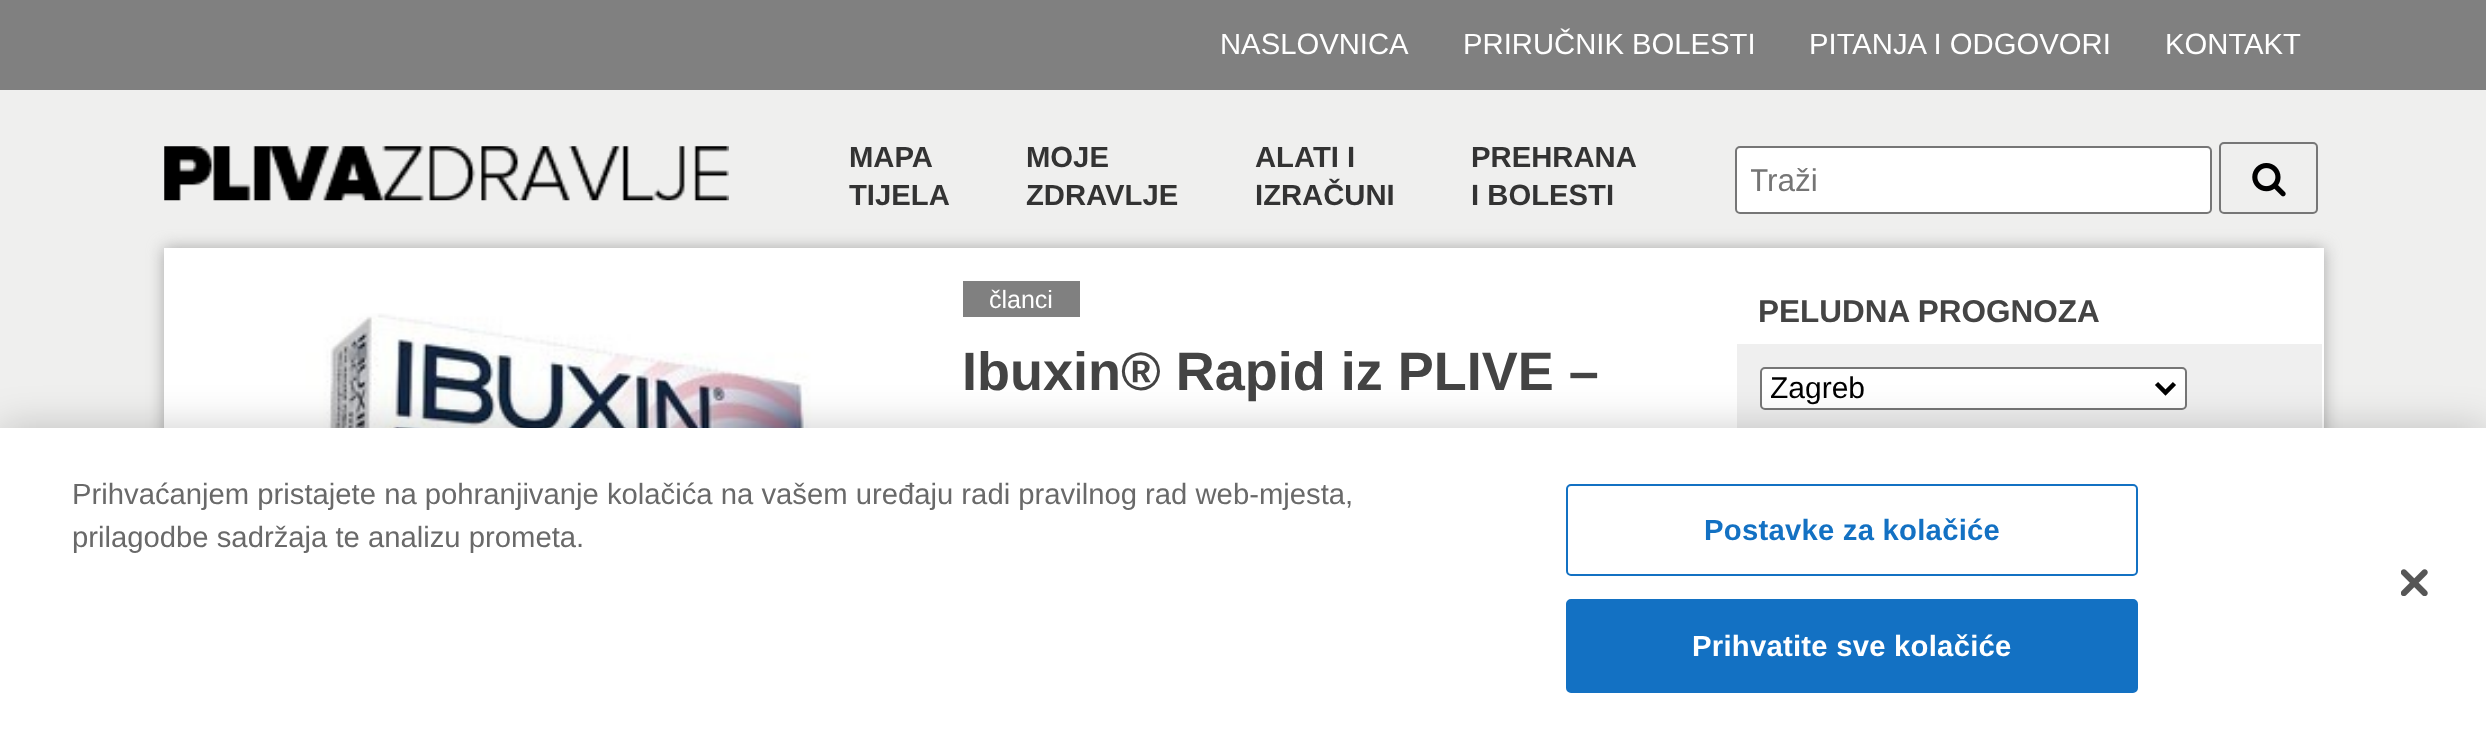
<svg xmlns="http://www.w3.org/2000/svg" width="2486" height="738">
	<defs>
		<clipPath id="clip1"><rect x="1751" y="162" width="445" height="36" /></clipPath>
		<clipPath id="clip2"><rect x="1771" y="369" width="378" height="38" /></clipPath>
	</defs>
	<rect width="100%" height="100%" fill="#EFEFEE" />
	<rect x="0" y="0" width="2486" height="90" fill="#808080" />
	<g font-family="Liberation Sans" font-size="29.25" fill="#FFFFFF">
		<text x="1220" y="54">NASLOVNICA</text>
		<text x="1463" y="54">PRIRUČNIK BOLESTI</text>
		<text x="1809" y="54">PITANJA I ODGOVORI</text>
		<text x="2165" y="54">KONTAKT</text>
	</g>
	<image x="164" y="146" width="565" height="55" href="assets/img1.png" />
	<g font-family="Liberation Sans" font-size="29.25" font-weight="700" fill="#333333">
		<text x="849" y="167">MAPA</text>
		<text x="849" y="205">TIJELA</text>
		<text x="1026" y="167">MOJE</text>
		<text x="1026" y="205">ZDRAVLJE</text>
		<text x="1255" y="167">ALATI I</text>
		<text x="1255" y="205">IZRAČUNI</text>
		<text x="1471" y="167">PREHRANA</text>
		<text x="1471" y="205">I BOLESTI</text>
	</g>
	<rect x="1736" y="147" width="475" height="66" rx="4" fill="#FFFFFF" stroke="#767676" stroke-width="2" />
	<g clip-path="url(#clip1)">
		<text x="1749" y="191" font-family="Liberation Sans" font-size="31.5" fill="#757575">Traži</text>
	</g>
	<rect x="2220" y="143" width="97" height="70" rx="4" fill="none" stroke="#767676" stroke-width="2" />
	<image x="2252" y="163" width="34" height="34" href="assets/img2.png" />
	<rect x="164" y="248" width="2160" height="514" fill="#A6A6A6" filter="blur(8px)" />
	<rect x="164" y="248" width="2160" height="180" fill="#FFFFFF" />
	<image x="200" y="313" width="692" height="115" href="assets/img3.png" />
	<rect x="963" y="281" width="117" height="36" fill="#808080" />
	<text x="989" y="308" font-family="Liberation Sans" font-size="25" fill="#FFFFFF">članci</text>
	<text x="962" y="390" font-family="Liberation Sans" font-size="54" font-weight="700" fill="#444444">Ibuxin® Rapid iz PLIVE –</text>
	<rect x="1737" y="344" width="585" height="84" fill="#EFEFEF" />
	<text x="1758" y="322" font-family="Liberation Sans" font-size="31.5" font-weight="700" fill="#444444">PELUDNA PROGNOZA</text>
	<rect x="1761" y="368" width="425" height="41" rx="4" fill="#FFFFFF" stroke="#767676" stroke-width="2" />
	<path d="M2156.5 383.5L2165.5 392.5L2174.5 383.5" fill="none" stroke="#000000" stroke-width="4.5" />
	<g clip-path="url(#clip2)">
		<text x="1770" y="398" font-family="Liberation Sans" font-size="30" fill="#000000">Zagreb</text>
	</g>
	<rect x="0" y="428" width="2486" height="310" fill="#000000" fill-opacity="0.2" filter="blur(20px)" />
	<rect x="0" y="428" width="2486" height="310" fill="#FFFFFF" />
	<g font-family="Liberation Sans" font-size="29.25" fill="#696969">
		<text x="72" y="504">Prihvaćanjem pristajete na pohranjivanje kolačića na vašem uređaju radi pravilnog rad web-mjesta,</text>
		<text x="72" y="547">prilagodbe sadržaja te analizu prometa.</text>
	</g>
	<rect x="1567" y="485" width="570" height="90" rx="4" fill="none" stroke="#1371C3" stroke-width="2" />
	<text x="1704" y="540" font-family="Liberation Sans" font-size="29.25" font-weight="700" letter-spacing="0.25" fill="#1371C3">Postavke za kolačiće</text>
	<rect x="1567" y="600" width="570" height="92" rx="4" fill="#1371C3" stroke="#1371C3" stroke-width="2" />
	<text x="1692" y="656" font-family="Liberation Sans" font-size="29.25" font-weight="700" letter-spacing="0.25" fill="#FFFFFF">Prihvatite sve kolačiće</text>
	<image x="2401" y="569" width="27" height="27" href="assets/img4.png" />
</svg>
